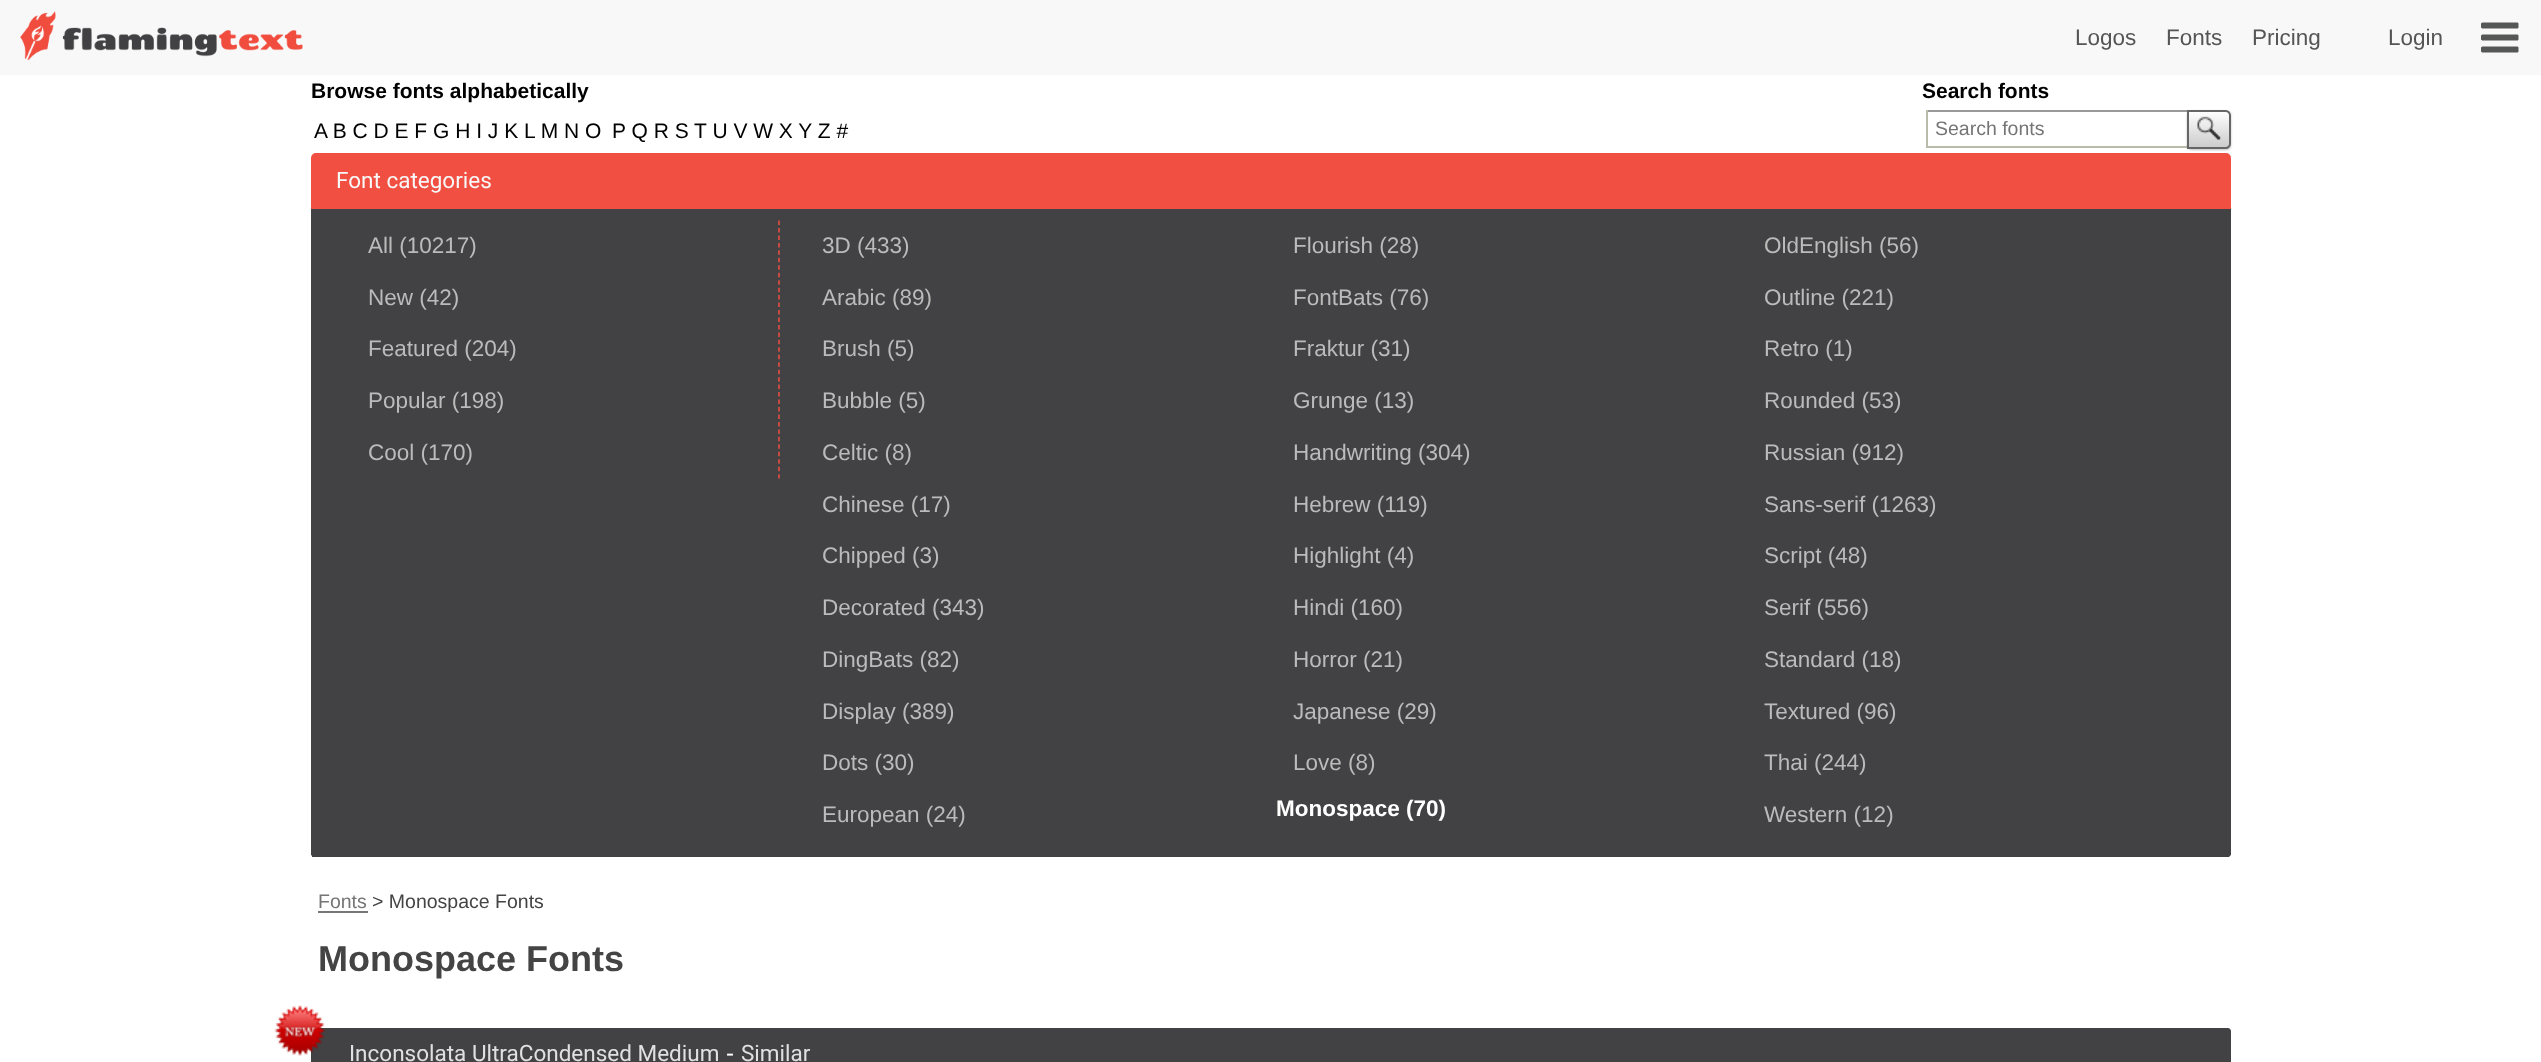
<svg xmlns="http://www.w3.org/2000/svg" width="2541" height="1062">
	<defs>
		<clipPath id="clip1"><path d="M2187 110H2226C2229 110 2231 112 2231 115V144C2231 147 2229 149 2226 149H2187Z" /></clipPath>
		<linearGradient id="g1" gradientUnits="userSpaceOnUse" x1="2209" y1="111" x2="2209" y2="147"><stop offset="0" stop-color="#FFFFFF" /><stop offset="1" stop-color="#CCCCCC" /></linearGradient>
	</defs>
	<rect width="100%" height="100%" fill="#FFFFFF" />
	<rect x="0" y="0" width="2541" height="75" fill="#F8F8F8" />
	<image x="20" y="11" width="283" height="49" href="assets/img1.png" />
	<g font-family="Liberation Sans" font-size="22.5" fill="#555555">
		<text x="2075" y="45">Logos</text>
		<text x="2166" y="45">Fonts</text>
		<text x="2252" y="45">Pricing</text>
		<text x="2388" y="45">Login</text>
	</g>
	<image x="2481" y="22" width="38" height="31" href="assets/img2.png" />
	<text x="311" y="98" font-family="Liberation Sans" font-size="21" font-weight="700" fill="#000000">Browse fonts alphabetically</text>
	<text x="314" y="138" font-family="Liberation Sans" font-size="21" fill="#000000">A B C D E F G H I J K L M N O</text>
	<text x="612" y="138" font-family="Liberation Sans" font-size="21" fill="#000000">P Q R S T U V W X Y Z #</text>
	<text x="1922" y="98" font-family="Liberation Sans" font-size="21" font-weight="700" fill="#000000">Search fonts</text>
	<rect x="1926" y="110" width="261" height="2" fill="#999999" />
	<rect x="1926" y="146" width="261" height="2" fill="#BBBBAA" />
	<rect x="1926" y="110" width="2" height="37" fill="#BBBBAA" />
	<text x="1935" y="135" font-family="Liberation Sans" font-size="19.5" fill="#757575">Search fonts</text>
	<path d="M316 154.5H2226C2228 154.5 2229.5 156 2229.5 158V207.5H312.5V158C312.5 156 314 154.5 316 154.5Z" fill="#F04F41" stroke="#F04F41" stroke-width="3" />
	<rect x="2187" y="111" width="44" height="39" rx="5" fill="#000000" fill-opacity="0.25" filter="blur(1px)" />
	<g clip-path="url(#clip1)">
		<rect x="2189" y="111" width="42" height="36" fill="url(#g1)" />
	</g>
	<path d="M2188 111H2226C2228 111 2230 113 2230 115V144C2230 146 2228 148 2226 148H2188Z" fill="none" stroke="#666666" stroke-width="2" />
	<image x="2197" y="116" width="24" height="24" href="assets/img3.png" />
	<text x="336" y="188" font-family="Roboto" font-size="22.5" fill="#F8F8F8">Font categories</text>
	<path d="M311 209H2231V854C2231 855.5 2229.5 857 2228 857H314C312.5 857 311 855.5 311 854Z" fill="#424143" />
	<rect x="2230" y="854" width="1" height="1" fill="#424143" />
	<rect x="312" y="856" width="1917" height="1" fill="#424143" />
	<rect x="311" y="854" width="1" height="1" fill="#424143" />
	<path d="M779 220.5V478.5" fill="none" stroke="#F04F41" stroke-width="1.5" stroke-dasharray="4.5 2.96" />
	<g font-family="Liberation Sans" font-size="22.5" fill="#BBBBBB">
		<text x="368" y="253">All (10217)</text>
		<text x="368" y="305">New (42)</text>
		<text x="368" y="356">Featured (204)</text>
		<text x="368" y="408">Popular (198)</text>
		<text x="368" y="460">Cool (170)</text>
		<text x="822" y="253">3D (433)</text>
		<text x="822" y="305">Arabic (89)</text>
		<text x="822" y="356">Brush (5)</text>
		<text x="822" y="408">Bubble (5)</text>
		<text x="822" y="460">Celtic (8)</text>
		<text x="822" y="512">Chinese (17)</text>
		<text x="822" y="563">Chipped (3)</text>
		<text x="822" y="615">Decorated (343)</text>
		<text x="822" y="667">DingBats (82)</text>
		<text x="822" y="719">Display (389)</text>
		<text x="822" y="770">Dots (30)</text>
		<text x="822" y="822">European (24)</text>
		<text x="1293" y="253">Flourish (28)</text>
		<text x="1293" y="305">FontBats (76)</text>
		<text x="1293" y="356">Fraktur (31)</text>
		<text x="1293" y="408">Grunge (13)</text>
		<text x="1293" y="460">Handwriting (304)</text>
		<text x="1293" y="512">Hebrew (119)</text>
		<text x="1293" y="563">Highlight (4)</text>
		<text x="1293" y="615">Hindi (160)</text>
		<text x="1293" y="667">Horror (21)</text>
		<text x="1293" y="719">Japanese (29)</text>
		<text x="1293" y="770">Love (8)</text>
	</g>
	<text x="1276" y="816" font-family="Liberation Sans" font-size="22.5" font-weight="700" fill="#FFFFFF">Monospace (70)</text>
	<g font-family="Liberation Sans" font-size="22.5" fill="#BBBBBB">
		<text x="1764" y="253">OldEnglish (56)</text>
		<text x="1764" y="305">Outline (221)</text>
		<text x="1764" y="356">Retro (1)</text>
		<text x="1764" y="408">Rounded (53)</text>
		<text x="1764" y="460">Russian (912)</text>
		<text x="1764" y="512">Sans-serif (1263)</text>
		<text x="1764" y="563">Script (48)</text>
		<text x="1764" y="615">Serif (556)</text>
		<text x="1764" y="667">Standard (18)</text>
		<text x="1764" y="719">Textured (96)</text>
		<text x="1764" y="770">Thai (244)</text>
		<text x="1764" y="822">Western (12)</text>
	</g>
	<text x="318" y="908" font-family="Liberation Sans" font-size="19.5" fill="#757575">Fonts</text>
	<rect x="318" y="911" width="50" height="2" fill="#777777" />
	<text x="372" y="908" font-family="Liberation Sans" font-size="19.5" fill="#444444">&gt; Monospace Fonts</text>
	<text x="318" y="971" font-family="Liberation Sans" font-size="36" font-weight="700" fill="#444444">Monospace Fonts</text>
	<path d="M314 1028H2228C2229.5 1028 2231 1029.5 2231 1031V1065H311V1031C311 1029.5 312.5 1028 314 1028Z" fill="#424143" />
	<image x="274" y="1005" width="52" height="51" href="assets/img4.png" />
	<text x="349" y="1061" font-family="Roboto" font-size="22.5" fill="#E0E0E1">Inconsolata UltraCondensed Medium</text>
	<text x="726" y="1061" font-family="Liberation Sans" font-size="24" fill="#FFFFFF">-</text>
	<text x="741" y="1061" font-family="Roboto" font-size="22.5" fill="#E0E0E1">Similar</text>
</svg>
